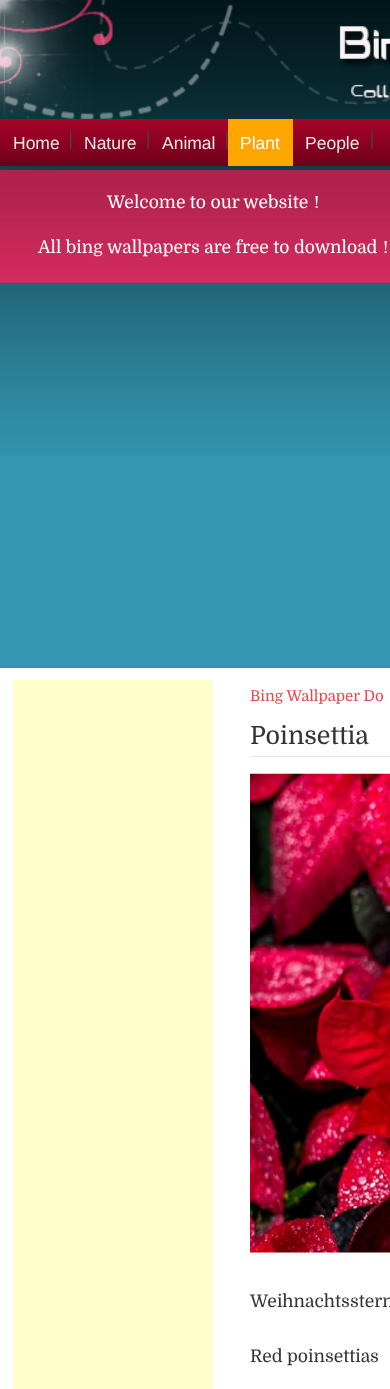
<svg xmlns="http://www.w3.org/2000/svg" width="390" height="1389">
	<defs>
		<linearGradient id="g1" gradientUnits="userSpaceOnUse" x1="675" y1="119" x2="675" y2="166"><stop offset="0" stop-color="#A90329" /><stop offset="0.44" stop-color="#8F0222" /><stop offset="1" stop-color="#6D0019" /></linearGradient>
	</defs>
	<rect width="100%" height="100%" fill="#3496B1" />
	<image x="0" y="0" width="390" height="456" href="assets/img1.png" />
	<image x="339" y="26" width="51" height="72" href="assets/img2.png" />
	<rect x="0" y="119" width="390" height="47" fill="url(#g1)" />
	<image x="70" y="131" width="2" height="18" href="assets/img3.png" />
	<text x="13" y="149" font-family="Liberation Sans" font-size="17.5" fill="#E7E7E7">Home</text>
	<image x="147" y="131" width="2" height="18" href="assets/img4.png" />
	<text x="84" y="149" font-family="Liberation Sans" font-size="17.5" fill="#E7E7E7">Nature</text>
	<image x="226" y="131" width="2" height="18" href="assets/img5.png" />
	<text x="162" y="149" font-family="Liberation Sans" font-size="17.5" fill="#E7E7E7">Animal</text>
	<rect x="228" y="119" width="65" height="47" fill="#FFA500" />
	<text x="240" y="149" font-family="Liberation Sans" font-size="17.5" fill="#FFFFFF">Plant</text>
	<image x="371" y="131" width="2" height="18" href="assets/img5.png" />
	<text x="305" y="149" font-family="Liberation Sans" font-size="17.5" fill="#E7E7E7">People</text>
	<rect x="0" y="282" width="390" height="1" fill="#C42857" />
	<image x="0" y="170" width="390" height="113" href="assets/img6.png" />
	<text x="107" y="208" font-family="Domine" font-size="17.5" fill="#FFFFFF">Welcome to our website</text>
	<text x="308" y="208" font-family="WenQuanYi Zen Hei" font-size="17.5" font-weight="500" fill="#FFFFFF">！</text>
	<text x="38" y="253" font-family="Domine" font-size="17.5" fill="#FFFFFF">All bing wallpapers are free to download</text>
	<text x="377" y="253" font-family="WenQuanYi Zen Hei" font-size="17.5" font-weight="500" fill="#FFFFFF">！</text>
	<rect x="0" y="668" width="390" height="721" fill="#FFFFFF" />
	<rect x="13" y="680" width="200" height="709" fill="#FFFFCC" />
	<text x="250" y="701" font-family="Domine" font-size="15" fill="#E54949">Bing Wallpaper Do</text>
	<text x="250" y="744" font-family="Domine" font-size="25" fill="#333333">Poinsettia</text>
	<rect x="250" y="756" width="140" height="1" fill="#E7E7E7" />
	<image x="250" y="773" width="140" height="480" href="assets/img7.png" />
	<g font-family="Domine" font-size="17.5" fill="#333333">
		<text x="250" y="1307">Weihnachtsstern</text>
		<text x="250" y="1362">Red poinsettias</text>
	</g>
</svg>
